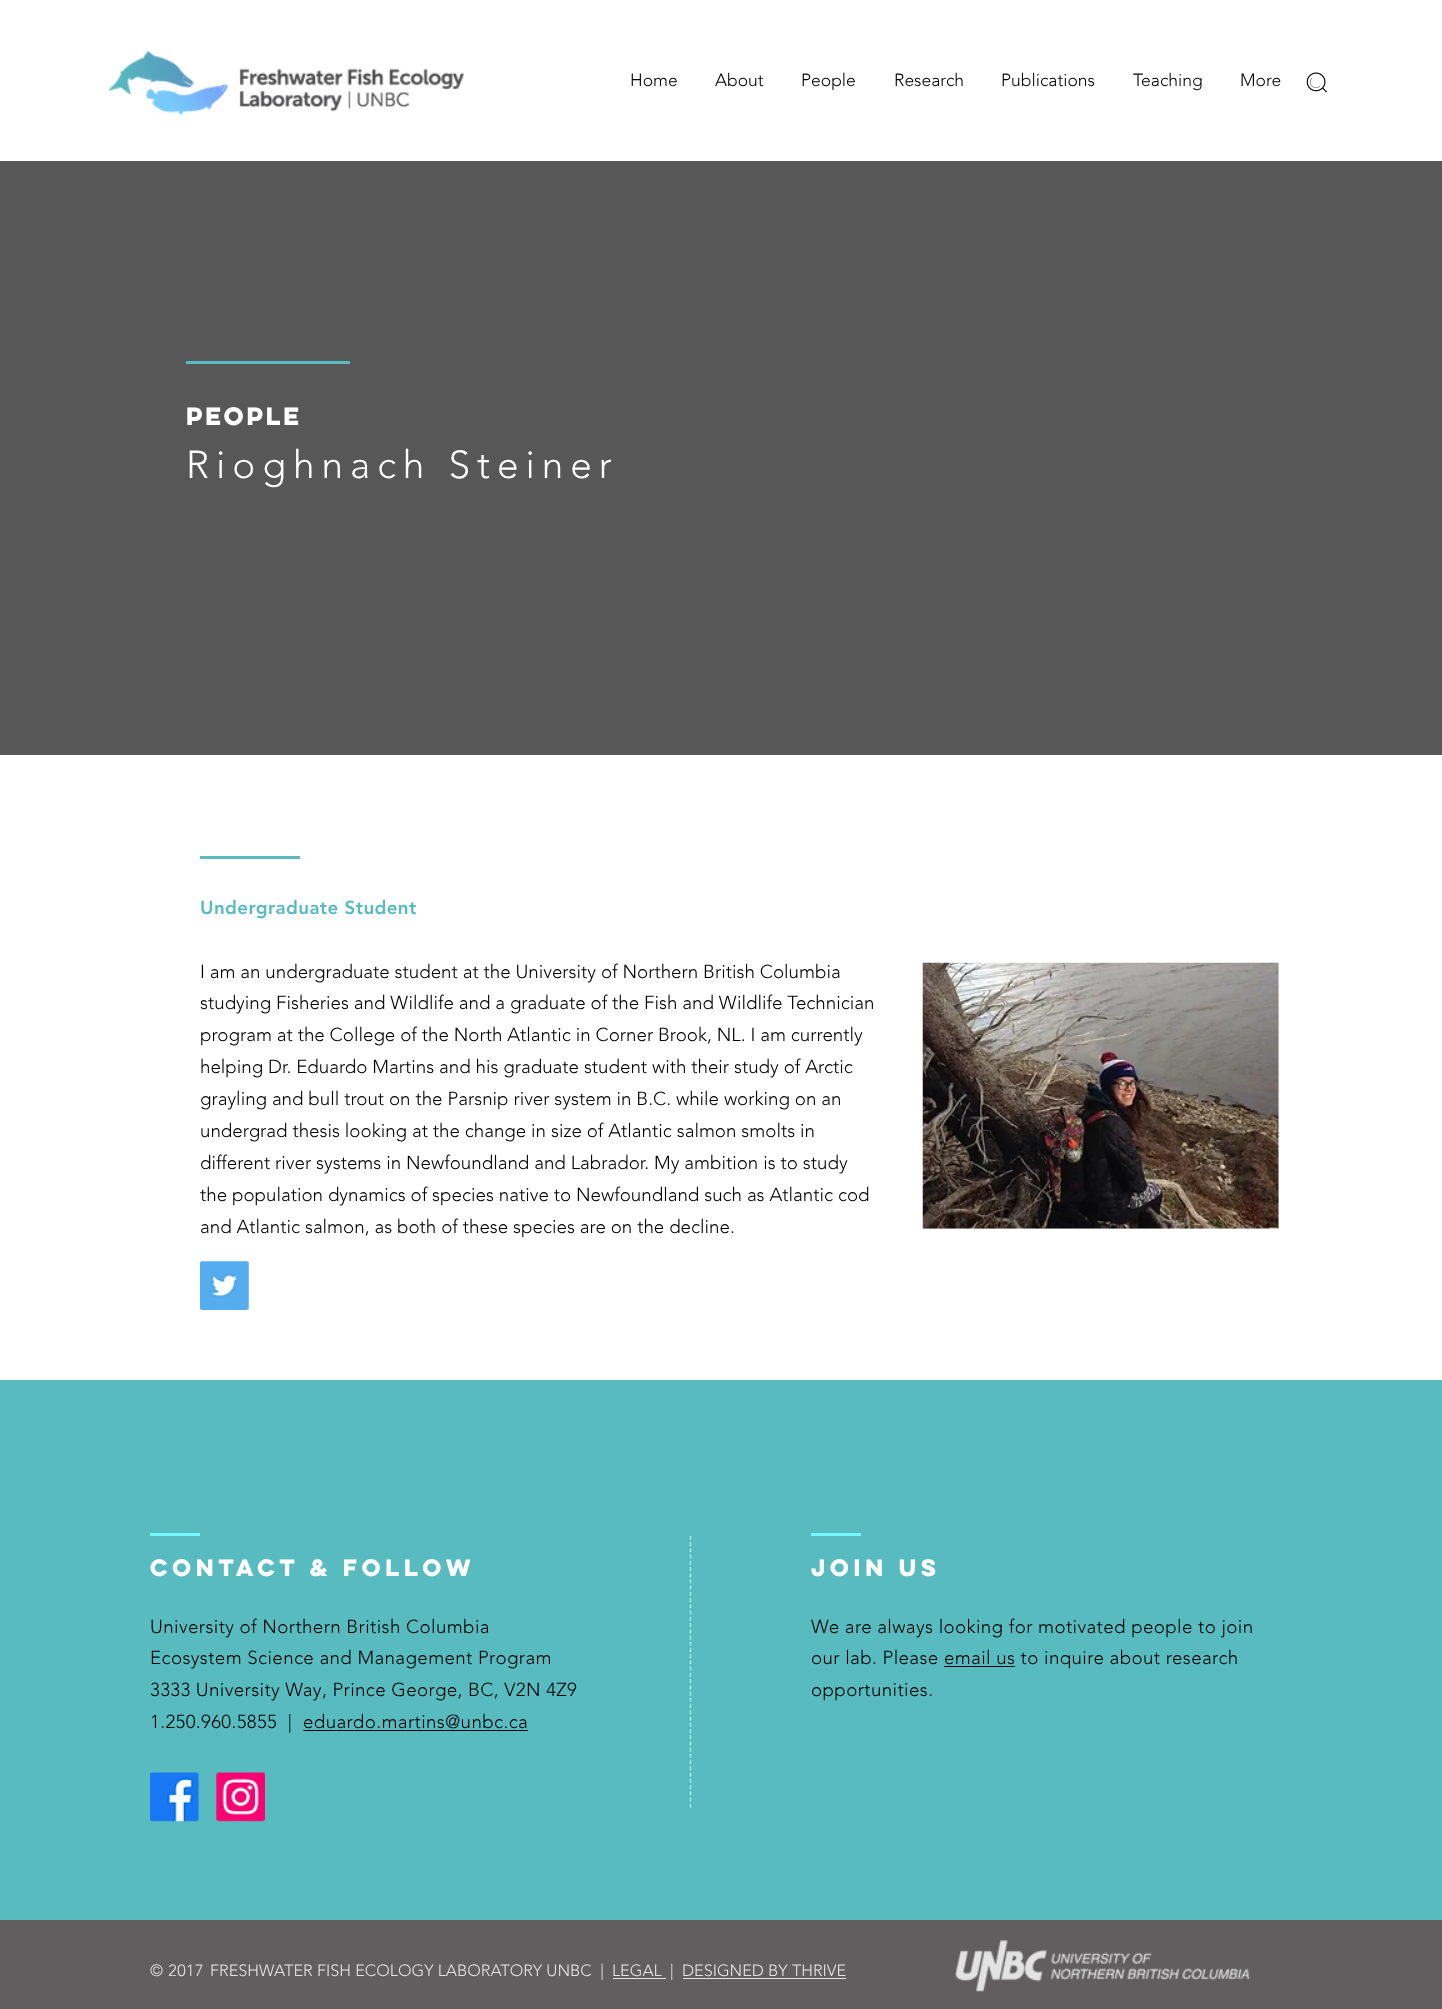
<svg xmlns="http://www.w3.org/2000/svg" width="1442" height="2009">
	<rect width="100%" height="100%" fill="#FFFFFF" />
	<image x="108" y="51" width="356" height="64" href="assets/img1.png" />
	<g font-family="'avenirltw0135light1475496'" font-size="17.5" font-weight="300" fill="#000000">
		<text x="630" y="86">Home</text>
		<text x="715" y="86">About</text>
		<text x="801" y="86">People</text>
		<text x="894" y="86">Research</text>
		<text x="1001" y="86">Publications</text>
		<text x="1133" y="86">Teaching</text>
		<text x="1240" y="86">More</text>
	</g>
	<image x="1306" y="72" width="21" height="21" href="assets/img2.png" />
	<rect x="0" y="161" width="1442" height="594" fill="#575757" />
	<rect x="186" y="361" width="164" height="3" fill="#57BBBF" />
	<text x="186" y="425" font-family="'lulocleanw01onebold'" font-size="22.5" font-weight="700" letter-spacing="-2.25" fill="#FFFFFF">PEOPLE</text>
	<text x="186" y="478" font-family="'avenirltw0135light1475496'" font-size="38.75" font-weight="300" letter-spacing="7" fill="#FFFFFF">Rioghnach Steiner</text>
	<rect x="200" y="856" width="100" height="3" fill="#57BBBF" />
	<text x="200" y="914" font-family="'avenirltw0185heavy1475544'" font-size="18.75" font-weight="900" letter-spacing="0.38" fill="#57BBBF">Undergraduate Student</text>
	<g font-family="'avenirltw0135light1475496'" font-size="18.75" font-weight="300" fill="#000000">
		<text x="200" y="978">I am an undergraduate student at the University of Northern British Columbia</text>
		<text x="200" y="1009">studying Fisheries and Wildlife and a graduate of the Fish and Wildlife Technician</text>
		<text x="200" y="1041">program at the College of the North Atlantic in Corner Brook, NL. I am currently</text>
		<text x="200" y="1073">helping Dr. Eduardo Martins and his graduate student with their study of Arctic</text>
		<text x="200" y="1105">grayling and bull trout on the Parsnip river system in B.C. while working on an</text>
		<text x="200" y="1137">undergrad thesis looking at the change in size of Atlantic salmon smolts in</text>
		<text x="200" y="1169">different river systems in Newfoundland and Labrador. My ambition is to study</text>
		<text x="200" y="1201">the population dynamics of species native to Newfoundland such as Atlantic cod</text>
		<text x="200" y="1233">and Atlantic salmon, as both of these species are on the decline.</text>
	</g>
	<image x="922" y="962" width="357" height="267" href="assets/img3.png" />
	<image x="200" y="1261" width="49" height="49" href="assets/img4.png" />
	<rect x="0" y="1380" width="1442" height="540" fill="#57BBBF" />
	<rect x="150" y="1533" width="50" height="3" fill="#74F9FF" />
	<rect x="811" y="1533" width="50" height="3" fill="#74F9FF" />
	<text x="150" y="1576" font-family="'lulocleanw01onebold'" font-size="21.25" font-weight="700" fill="#FFFFFF">Contact &amp; FOLLOW</text>
	<path d="M690.5 1536V1807.5" fill="none" stroke="#BAFCFF" stroke-width="1.2" stroke-dasharray="3.75 2.48" />
	<text x="811" y="1576" font-family="'lulocleanw01onebold'" font-size="21.25" font-weight="700" fill="#FFFFFF">JOIN US</text>
	<g font-family="'avenirltw0135light1475496'" font-size="18.75" font-weight="300" letter-spacing="0.38" fill="#000000">
		<text x="150" y="1633">University of Northern British Columbia</text>
		<text x="150" y="1664">Ecosystem Science and Management Program</text>
		<text x="150" y="1696">3333 University Way, Prince George, BC, V2N 4Z9</text>
		<text x="150" y="1728" xml:space="preserve">1.250.960.5855  |</text>
		<text x="303" y="1728">eduardo.martins@unbc.ca</text>
	</g>
	<rect x="303" y="1730" width="225" height="1" fill="#000000" />
	<g font-family="'avenirltw0135light1475496'" font-size="18.75" font-weight="300" letter-spacing="0.38" fill="#000000">
		<text x="811" y="1633">We are always looking for motivated people to join</text>
		<text x="811" y="1664">our lab. Please email us to inquire about research</text>
	</g>
	<rect x="944" y="1666" width="71" height="1" fill="#000000" />
	<text x="811" y="1696" font-family="'avenirltw0135light1475496'" font-size="18.75" font-weight="300" letter-spacing="0.38" fill="#000000">opportunities.</text>
	<image x="150" y="1772" width="49" height="50" href="assets/img5.png" />
	<image x="216" y="1772" width="49" height="50" href="assets/img6.png" />
	<rect x="0" y="1920" width="1442" height="89" fill="#605E5E" />
	<text x="150" y="1976" font-family="'avenirltw0135light1475496'" font-size="16.25" font-weight="300" letter-spacing="0.5" fill="#E4E4E4">© 2017</text>
	<g font-family="'avenirltw0135light1475496'" font-size="16.25" font-weight="300" fill="#E4E4E4">
		<text x="210" y="1976" xml:space="preserve">FRESHWATER FISH ECOLOGY LABORATORY UNBC  |</text>
		<text x="612" y="1976">LEGAL</text>
	</g>
	<rect x="613" y="1978" width="53" height="1" fill="#E4E4E4" />
	<g font-family="'avenirltw0135light1475496'" font-size="16.25" font-weight="300" fill="#E4E4E4">
		<text x="670" y="1976">|</text>
		<text x="682" y="1976">DESIGNED BY THRIVE</text>
	</g>
	<rect x="683" y="1978" width="163" height="1" fill="#E4E4E4" />
	<image x="955" y="1939" width="295" height="53" href="assets/img7.png" />
</svg>
